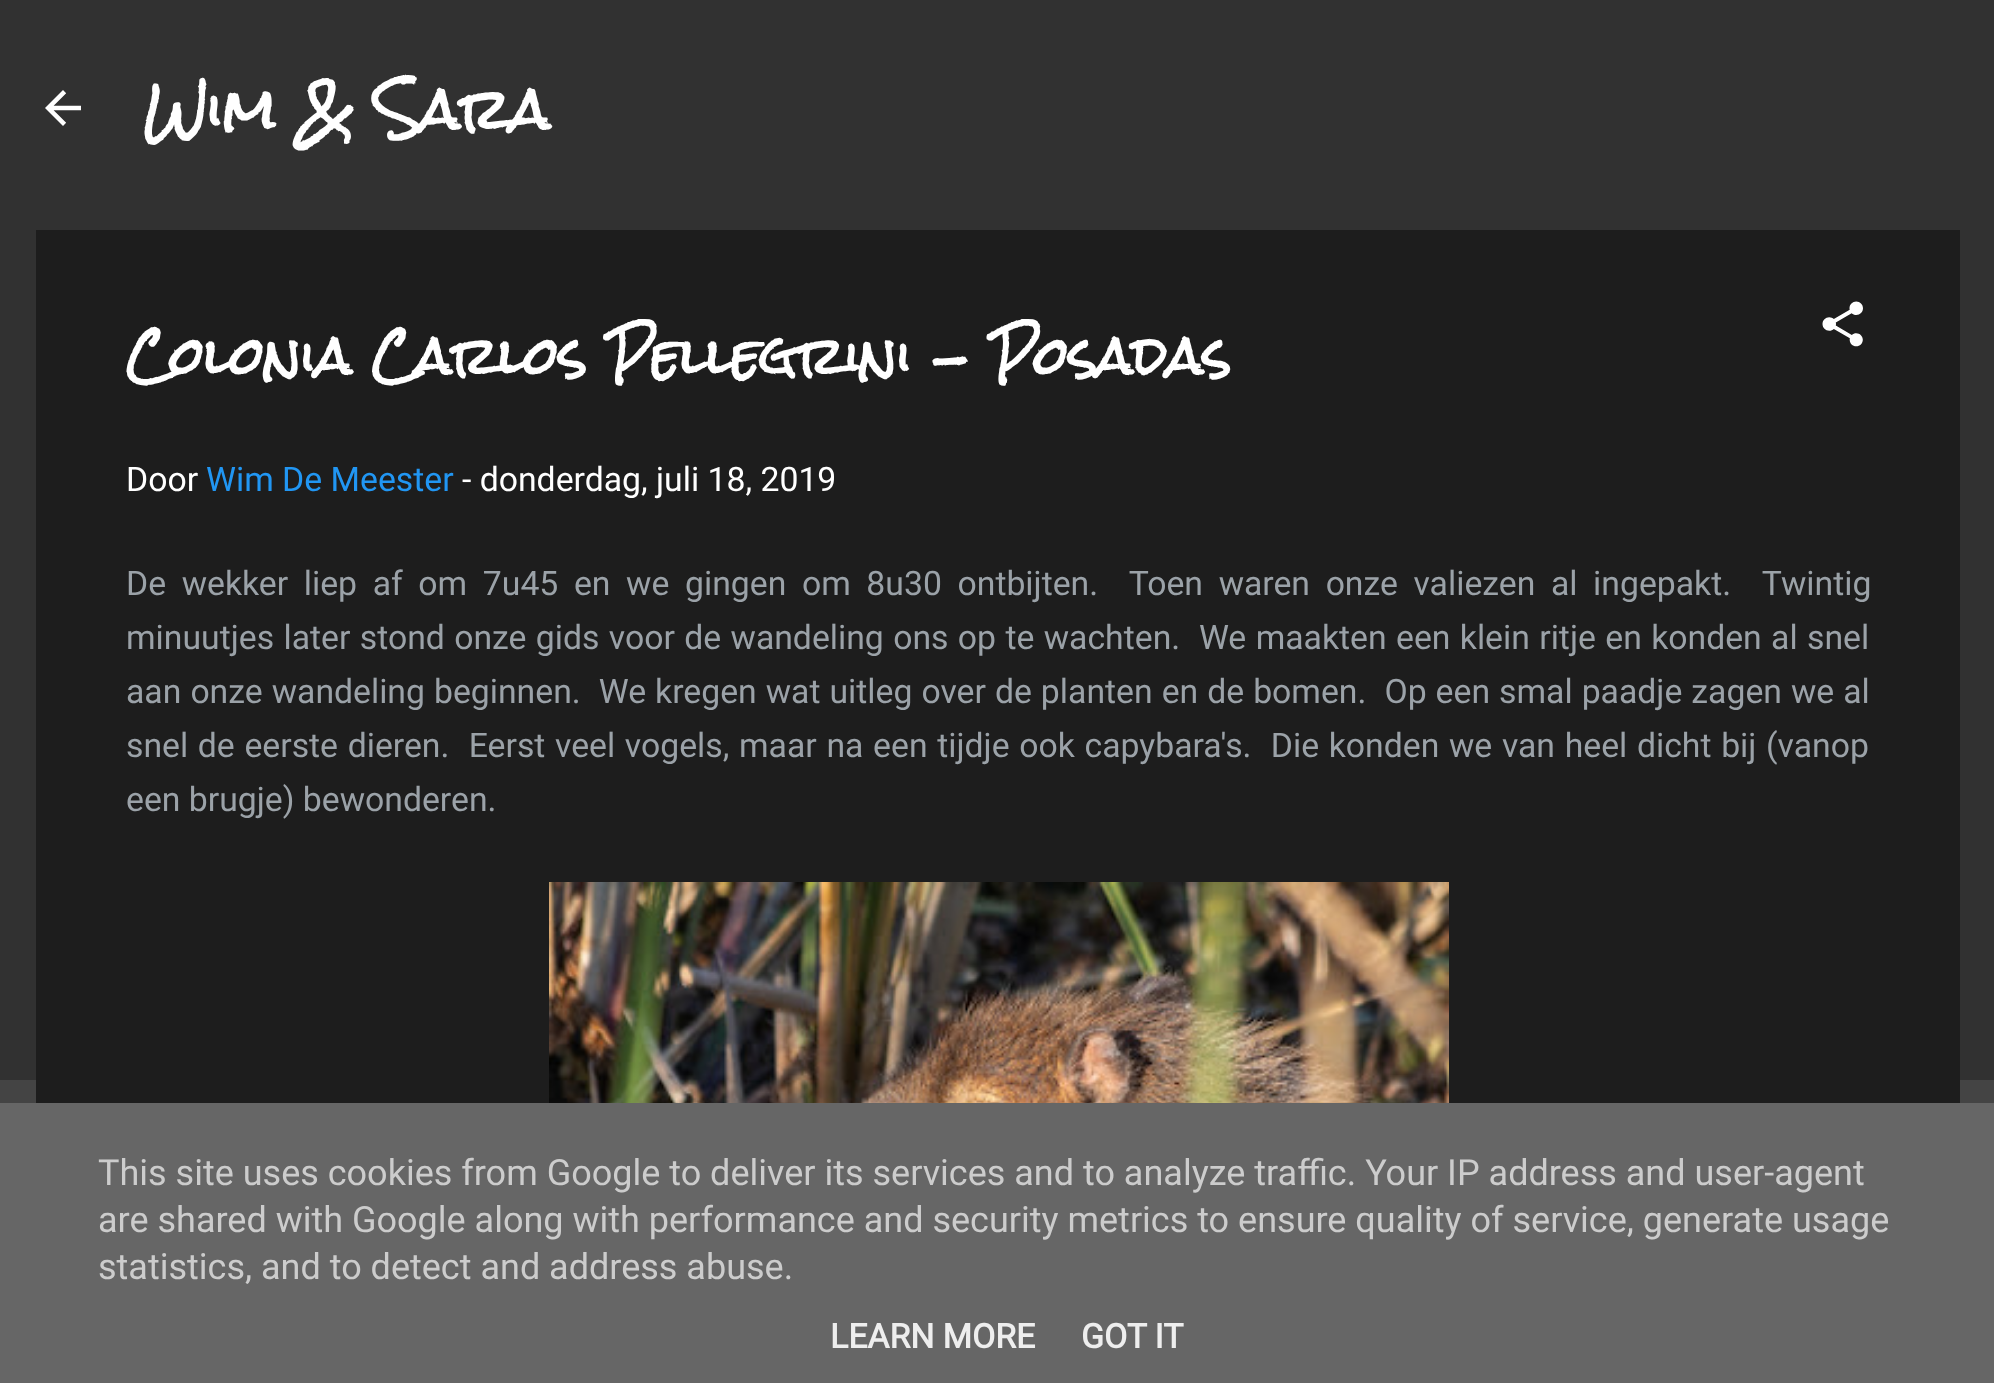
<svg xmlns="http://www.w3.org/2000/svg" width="1994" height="1383">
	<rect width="100%" height="100%" fill="#444444" />
	<rect x="0" y="0" width="1994" height="1080" fill="#313131" />
	<image x="45" y="90" width="36" height="36" href="assets/img1.png" />
	<text x="144" y="131" font-family="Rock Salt" font-size="54" font-weight="700" fill="#FFFFFF">Wim &amp; Sara</text>
	<rect x="36" y="230" width="1924" height="873" fill="#1D1D1D" />
	<text x="126" y="376" font-family="Rock Salt" font-size="49.5" font-weight="700" fill="#FFFFFF">Colonia Carlos Pellegrini - Posadas</text>
	<image x="1822" y="301" width="41" height="46" href="assets/img2.png" />
	<text x="126" y="491" font-family="Roboto" font-size="33.75" fill="#FFFFFF">Door</text>
	<text x="206" y="491" font-family="Roboto" font-size="33.75" fill="#2196F3">Wim De Meester</text>
	<text x="462" y="491" font-family="Roboto" font-size="33.75" fill="#FFFFFF">- donderdag, juli 18, 2019</text>
	<g font-family="Roboto" font-size="33.75" fill="#9BA2A8">
		<text x="126" y="595" word-spacing="7.25" xml:space="preserve">De wekker liep af om 7u45 en we gingen om 8u30 ontbijten.  Toen waren onze valiezen al ingepakt.  Twintig</text>
		<text x="126" y="649" word-spacing="1" xml:space="preserve">minuutjes later stond onze gids voor de wandeling ons op te wachten.  We maakten een klein ritje en konden al snel</text>
		<text x="126" y="703" word-spacing="0.65" xml:space="preserve">aan onze wandeling beginnen.  We kregen wat uitleg over de planten en de bomen.  Op een smal paadje zagen we al</text>
		<text x="126" y="757" word-spacing="1.3" xml:space="preserve">snel de eerste dieren.  Eerst veel vogels, maar na een tijdje ook capybara's.  Die konden we van heel dicht bij (vanop</text>
		<text x="126" y="811">een brugje) bewonderen.</text>
	</g>
	<image x="549" y="882" width="900" height="221" href="assets/img3.png" />
	<rect x="0" y="1103" width="1994" height="280" fill="#666666" />
	<g font-family="Roboto" font-size="36" fill="#CCCCCC">
		<text x="98" y="1185">This site uses cookies from Google to deliver its services and to analyze traffic. Your IP address and user-agent</text>
		<text x="98" y="1232">are shared with Google along with performance and security metrics to ensure quality of service, generate usage</text>
		<text x="98" y="1279">statistics, and to detect and address abuse.</text>
	</g>
	<g font-family="Roboto" font-size="33.75" font-weight="700" fill="#EEEEEE">
		<text x="830" y="1348">LEARN MORE</text>
		<text x="1081" y="1348">GOT IT</text>
	</g>
</svg>
